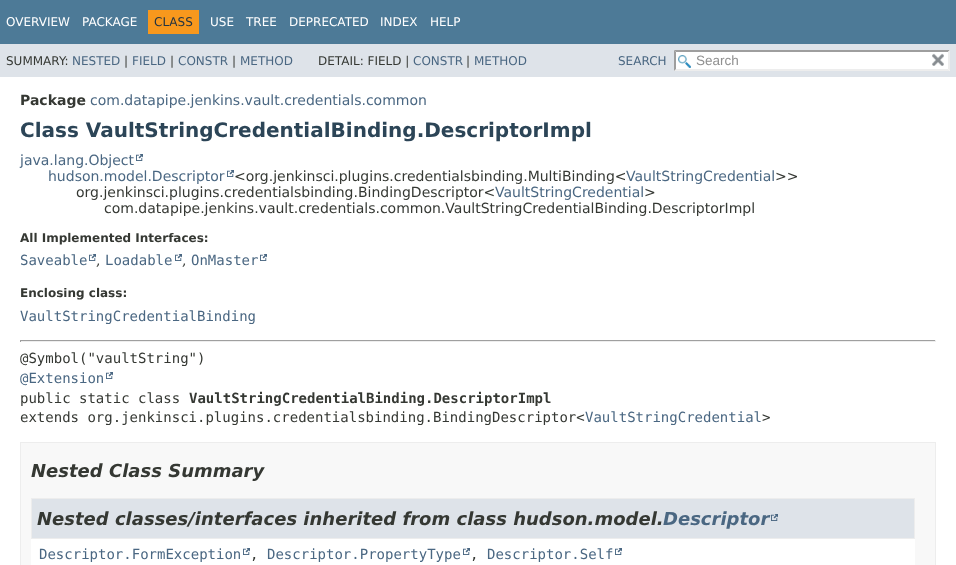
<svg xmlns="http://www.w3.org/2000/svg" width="956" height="565">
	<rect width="100%" height="100%" fill="#FFFFFF" />
	<rect x="0" y="0" width="956" height="44" fill="#4D7A97" />
	<g font-family="DejaVu Sans" font-size="12" fill="#FFFFFF">
		<text x="6" y="26">OVERVIEW</text>
		<text x="82" y="26">PACKAGE</text>
	</g>
	<rect x="148" y="10" width="51" height="24" fill="#F8981D" />
	<text x="154" y="26" font-family="DejaVu Sans" font-size="12" fill="#253441">CLASS</text>
	<g font-family="DejaVu Sans" font-size="12" fill="#FFFFFF">
		<text x="210" y="26">USE</text>
		<text x="246" y="26">TREE</text>
		<text x="289" y="26">DEPRECATED</text>
		<text x="380" y="26">INDEX</text>
		<text x="430" y="26">HELP</text>
	</g>
	<rect x="0" y="44" width="956" height="33" fill="#DEE3E9" />
	<text x="6" y="65" font-family="DejaVu Sans" font-size="12" fill="#353833">SUMMARY:</text>
	<text x="72" y="65" font-family="DejaVu Sans" font-size="12" fill="#4A6782">NESTED</text>
	<text x="124" y="65" font-family="DejaVu Sans" font-size="12" fill="#353833">|</text>
	<text x="132" y="65" font-family="DejaVu Sans" font-size="12" fill="#4A6782">FIELD</text>
	<text x="170" y="65" font-family="DejaVu Sans" font-size="12" fill="#353833">|</text>
	<text x="178" y="65" font-family="DejaVu Sans" font-size="12" fill="#4A6782">CONSTR</text>
	<text x="232" y="65" font-family="DejaVu Sans" font-size="12" fill="#353833">|</text>
	<text x="240" y="65" font-family="DejaVu Sans" font-size="12" fill="#4A6782">METHOD</text>
	<text x="318" y="65" font-family="DejaVu Sans" font-size="12" fill="#353833">DETAIL: FIELD |</text>
	<text x="413" y="65" font-family="DejaVu Sans" font-size="12" fill="#4A6782">CONSTR</text>
	<text x="466" y="65" font-family="DejaVu Sans" font-size="12" fill="#353833">|</text>
	<g font-family="DejaVu Sans" font-size="12" fill="#4A6782">
		<text x="474" y="65">METHOD</text>
		<text x="618" y="65">SEARCH</text>
	</g>
	<rect x="674" y="50" width="276" height="21" fill="#FFFFFF" />
	<image x="678" y="55" width="13" height="13" href="assets/img1.png" />
	<path d="M674 50H950L948 52H676Z" fill="#9E9E9E" />
	<path d="M950 50V71L948 69V52Z" fill="#EDEDED" />
	<path d="M950 71H674L676 69H948Z" fill="#EDEDED" />
	<path d="M674 71V50L676 52V69Z" fill="#9E9E9E" />
	<text x="696" y="65" font-family="Liberation Sans" font-size="13.5" fill="#909090">Search</text>
	<image x="932" y="53" width="12" height="13" href="assets/img2.png" />
	<text x="20" y="105" font-family="DejaVu Sans" font-size="14" font-weight="700" fill="#353833">Package</text>
	<text x="90" y="105" font-family="DejaVu Sans" font-size="14" fill="#4A6782">com.datapipe.jenkins.vault.credentials.common</text>
	<text x="20" y="137" font-family="DejaVu Sans" font-size="20" font-weight="700" fill="#2C4557">Class VaultStringCredentialBinding.DescriptorImpl</text>
	<text x="20" y="165" font-family="DejaVu Sans" font-size="14" fill="#4A6782">java.lang.Object</text>
	<image x="136" y="154" width="7" height="7" href="assets/img3.png" />
	<text x="48" y="181" font-family="DejaVu Sans" font-size="14" fill="#4A6782">hudson.model.Descriptor</text>
	<image x="227" y="170" width="7" height="7" href="assets/img3.png" />
	<text x="234" y="181" font-family="DejaVu Sans" font-size="14" fill="#353833">&lt;org.jenkinsci.plugins.credentialsbinding.MultiBinding&lt;</text>
	<text x="626" y="181" font-family="DejaVu Sans" font-size="14" fill="#4A6782">VaultStringCredential</text>
	<g font-family="DejaVu Sans" font-size="14" fill="#353833">
		<text x="775" y="181">&gt;&gt;</text>
		<text x="76" y="197">org.jenkinsci.plugins.credentialsbinding.BindingDescriptor&lt;</text>
	</g>
	<text x="495" y="197" font-family="DejaVu Sans" font-size="14" fill="#4A6782">VaultStringCredential</text>
	<g font-family="DejaVu Sans" font-size="14" fill="#353833">
		<text x="644" y="197">&gt;</text>
		<text x="104" y="213">com.datapipe.jenkins.vault.credentials.common.VaultStringCredentialBinding.DescriptorImpl</text>
	</g>
	<text x="20" y="242" font-family="DejaVu Sans" font-size="12" font-weight="700" fill="#353833">All Implemented Interfaces:</text>
	<text x="20" y="265" font-family="DejaVu Sans Mono" font-size="14" fill="#4A6782">Saveable</text>
	<image x="89" y="254" width="7" height="7" href="assets/img3.png" />
	<text x="96" y="265" font-family="DejaVu Serif" font-size="14" fill="#353833">,</text>
	<text x="105" y="265" font-family="DejaVu Sans Mono" font-size="14" fill="#4A6782">Loadable</text>
	<image x="175" y="254" width="7" height="7" href="assets/img3.png" />
	<text x="182" y="265" font-family="DejaVu Serif" font-size="14" fill="#353833">,</text>
	<text x="191" y="265" font-family="DejaVu Sans Mono" font-size="14" fill="#4A6782">OnMaster</text>
	<image x="260" y="254" width="7" height="7" href="assets/img3.png" />
	<text x="20" y="297" font-family="DejaVu Sans" font-size="12" font-weight="700" fill="#353833">Enclosing class:</text>
	<text x="20" y="321" font-family="DejaVu Sans Mono" font-size="14" fill="#4A6782">VaultStringCredentialBinding</text>
	<rect x="20" y="340" width="916" height="1" fill="#9F9F9F" />
	<rect x="935" y="340" width="1" height="2" fill="#EEEEEE" />
	<rect x="20" y="341" width="916" height="1" fill="#EEEEEE" />
	<rect x="20" y="340" width="1" height="2" fill="#9F9F9F" />
	<text x="20" y="363" font-family="DejaVu Sans Mono" font-size="14" fill="#353833">@Symbol("vaultString")</text>
	<text x="20" y="383" font-family="DejaVu Sans Mono" font-size="14" fill="#4A6782">@Extension</text>
	<image x="106" y="372" width="7" height="7" href="assets/img3.png" />
	<text x="20" y="403" font-family="DejaVu Sans Mono" font-size="14" fill="#353833">public static class</text>
	<text x="189" y="403" font-family="DejaVu Sans Mono" font-size="14" font-weight="700" fill="#353833">VaultStringCredentialBinding.DescriptorImpl</text>
	<text x="20" y="422" font-family="DejaVu Sans Mono" font-size="14" fill="#353833">extends org.jenkinsci.plugins.credentialsbinding.BindingDescriptor&lt;</text>
	<text x="585" y="422" font-family="DejaVu Sans Mono" font-size="14" fill="#4A6782">VaultStringCredential</text>
	<text x="762" y="422" font-family="DejaVu Sans Mono" font-size="14" fill="#353833">&gt;</text>
	<rect x="20.5" y="442.5" width="915" height="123" fill="#F8F8F8" stroke="#EDEDED" />
	<text x="31" y="477" font-family="DejaVu Sans" font-size="18" font-weight="700" font-style="italic" fill="#353833">Nested Class Summary</text>
	<rect x="31" y="539" width="884" height="26" fill="#FFFFFF" />
	<rect x="31.5" y="498.5" width="883" height="40" fill="#DEE3E9" stroke="#EDEDED" />
	<text x="37" y="525" font-family="DejaVu Sans" font-size="18" font-weight="700" font-style="italic" fill="#353833">Nested classes/interfaces inherited from class hudson.model.</text>
	<text x="663" y="525" font-family="DejaVu Sans" font-size="18" font-weight="700" font-style="italic" fill="#4A6782">Descriptor</text>
	<image x="771" y="514" width="7" height="7" href="assets/img4.png" />
	<text x="39" y="559" font-family="DejaVu Sans Mono" font-size="14" fill="#4A6782">Descriptor.FormException</text>
	<image x="243" y="548" width="7" height="7" href="assets/img3.png" />
	<text x="250" y="559" font-family="DejaVu Sans Mono" font-size="14" fill="#353833">,</text>
	<text x="267" y="559" font-family="DejaVu Sans Mono" font-size="14" fill="#4A6782">Descriptor.PropertyType</text>
	<image x="463" y="548" width="7" height="7" href="assets/img3.png" />
	<text x="470" y="559" font-family="DejaVu Sans Mono" font-size="14" fill="#353833">,</text>
	<text x="487" y="559" font-family="DejaVu Sans Mono" font-size="14" fill="#4A6782">Descriptor.Self</text>
	<image x="615" y="548" width="7" height="7" href="assets/img3.png" />
</svg>
